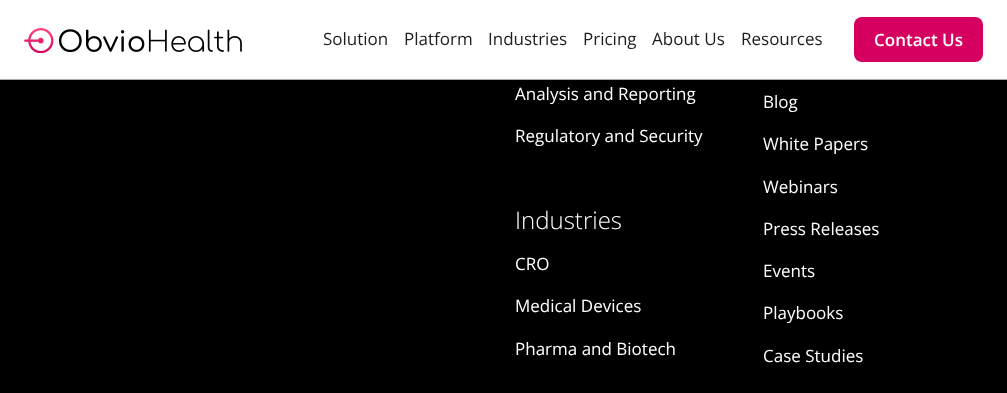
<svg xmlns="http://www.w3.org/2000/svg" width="1007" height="393">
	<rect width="100%" height="100%" fill="#000000" />
	<rect x="0" y="0" width="1007" height="79" fill="#FFFFFF" />
	<rect x="0" y="79" width="1007" height="1" fill="#ABABAB" />
	<image x="24" y="28" width="218" height="25" href="assets/img1.png" />
	<g font-family="Open Sans" font-size="17" fill="#1E1E1E">
		<text x="323" y="45">Solution</text>
		<text x="404" y="45">Platform</text>
		<text x="488" y="45">Industries</text>
		<text x="583" y="45">Pricing</text>
		<text x="652" y="45">About Us</text>
		<text x="741" y="45">Resources</text>
	</g>
	<rect x="854" y="17" width="129" height="45" rx="8" fill="#D5005F" />
	<text x="874" y="46" font-family="Open Sans" font-size="17" font-weight="600" fill="#FFFFFF">Contact Us</text>
	<g font-family="Open Sans" font-size="17" fill="#FFFFFF">
		<text x="515" y="100">Analysis and Reporting</text>
		<text x="515" y="142">Regulatory and Security</text>
	</g>
	<text x="515" y="229" font-family="Open Sans" font-size="24" font-weight="300" fill="#FFFFFF">Industries</text>
	<g font-family="Open Sans" font-size="17" fill="#FFFFFF">
		<text x="515" y="270">CRO</text>
		<text x="515" y="312">Medical Devices</text>
		<text x="515" y="355">Pharma and Biotech</text>
		<text x="763" y="108">Blog</text>
		<text x="763" y="150">White Papers</text>
		<text x="763" y="193">Webinars</text>
		<text x="763" y="235">Press Releases</text>
		<text x="763" y="277">Events</text>
		<text x="763" y="319">Playbooks</text>
		<text x="763" y="362">Case Studies</text>
	</g>
</svg>
